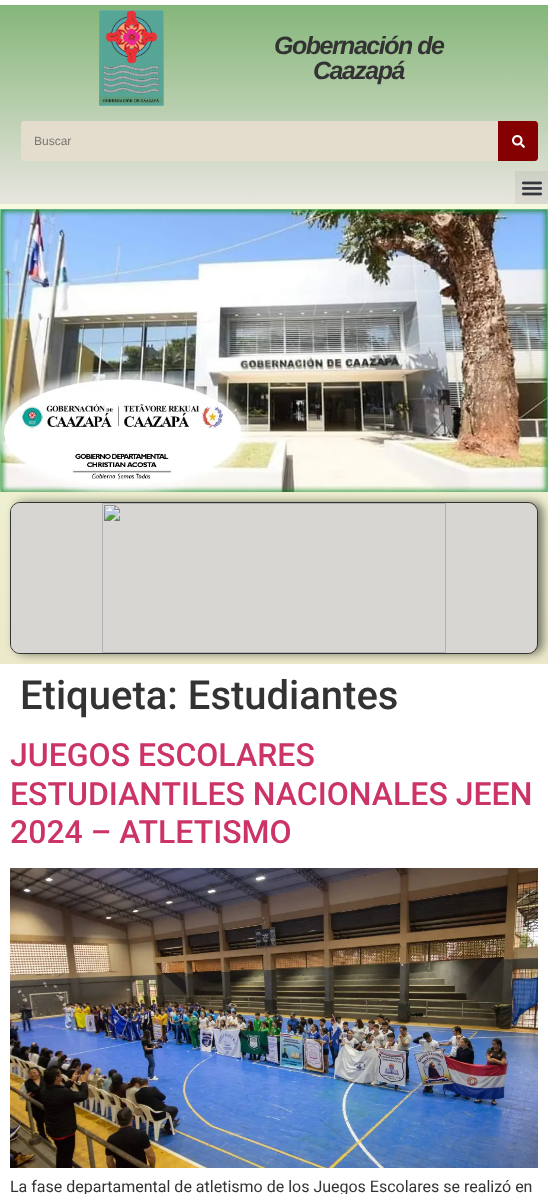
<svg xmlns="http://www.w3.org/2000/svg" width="548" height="1194">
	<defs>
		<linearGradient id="g1" gradientUnits="userSpaceOnUse" x1="274" y1="5" x2="274" y2="204"><stop offset="0" stop-color="#85B679" /><stop offset="1" stop-color="#E8E5DF" /></linearGradient>
		<linearGradient id="g2" gradientUnits="userSpaceOnUse" x1="274" y1="204" x2="274" y2="664"><stop offset="0" stop-color="#F6F9DD" /><stop offset="1" stop-color="#EBE9CA" /></linearGradient>
	</defs>
	<rect width="100%" height="100%" fill="#FFFFFF" />
	<rect x="0" y="5" width="548" height="199" fill="url(#g1)" />
	<image x="99" y="10" width="65" height="96" href="assets/img1.png" />
	<g font-family="Liberation Sans" font-size="25" font-weight="700" font-style="italic" letter-spacing="-1.5" fill="#333333">
		<text x="274" y="54">Gobernación de</text>
		<text x="313" y="79">Caazapá</text>
	</g>
	<rect x="21" y="121" width="517" height="40" rx="3" fill="#E4DDCD" />
	<text x="34" y="145" font-family="Liberation Sans" font-size="12" fill="#7A7771">Buscar</text>
	<path d="M498 121H535C536.5 121 538 122.5 538 124V158C538 159.5 536.5 161 535 161H498Z" fill="#850101" />
	<image x="512" y="135" width="13" height="13" href="assets/img2.png" />
	<rect x="515" y="171" width="33" height="33" fill="#000000" fill-opacity="0.05" />
	<image x="521" y="181" width="21" height="15" href="assets/img3.png" />
	<rect x="0" y="204" width="548" height="460" fill="url(#g2)" />
	<image x="0" y="209" width="548" height="283" href="assets/img4.png" />
	<rect x="15" y="502" width="528" height="152" rx="10" fill="#000000" fill-opacity="0.5" filter="blur(5px)" />
	<rect x="10.5" y="502.5" width="527" height="151" rx="9.5" fill="none" stroke="#333333" />
	<image x="11" y="503" width="526" height="150" href="assets/img5.png" />
	<text x="20" y="709" font-family="Roboto" font-size="40" font-weight="500" fill="#333333">Etiqueta: Estudiantes</text>
	<g font-family="Roboto" font-size="32" font-weight="500" fill="#CC3366">
		<text x="10" y="766">JUEGOS ESCOLARES</text>
		<text x="10" y="805">ESTUDIANTILES NACIONALES JEEN</text>
		<text x="10" y="843">2024 – ATLETISMO</text>
	</g>
	<image x="10" y="868" width="528" height="300" href="assets/img6.png" />
	<text x="10" y="1192" font-family="Roboto" font-size="16" fill="#333333">La fase departamental de atletismo de los Juegos Escolares se realizó en</text>
</svg>
